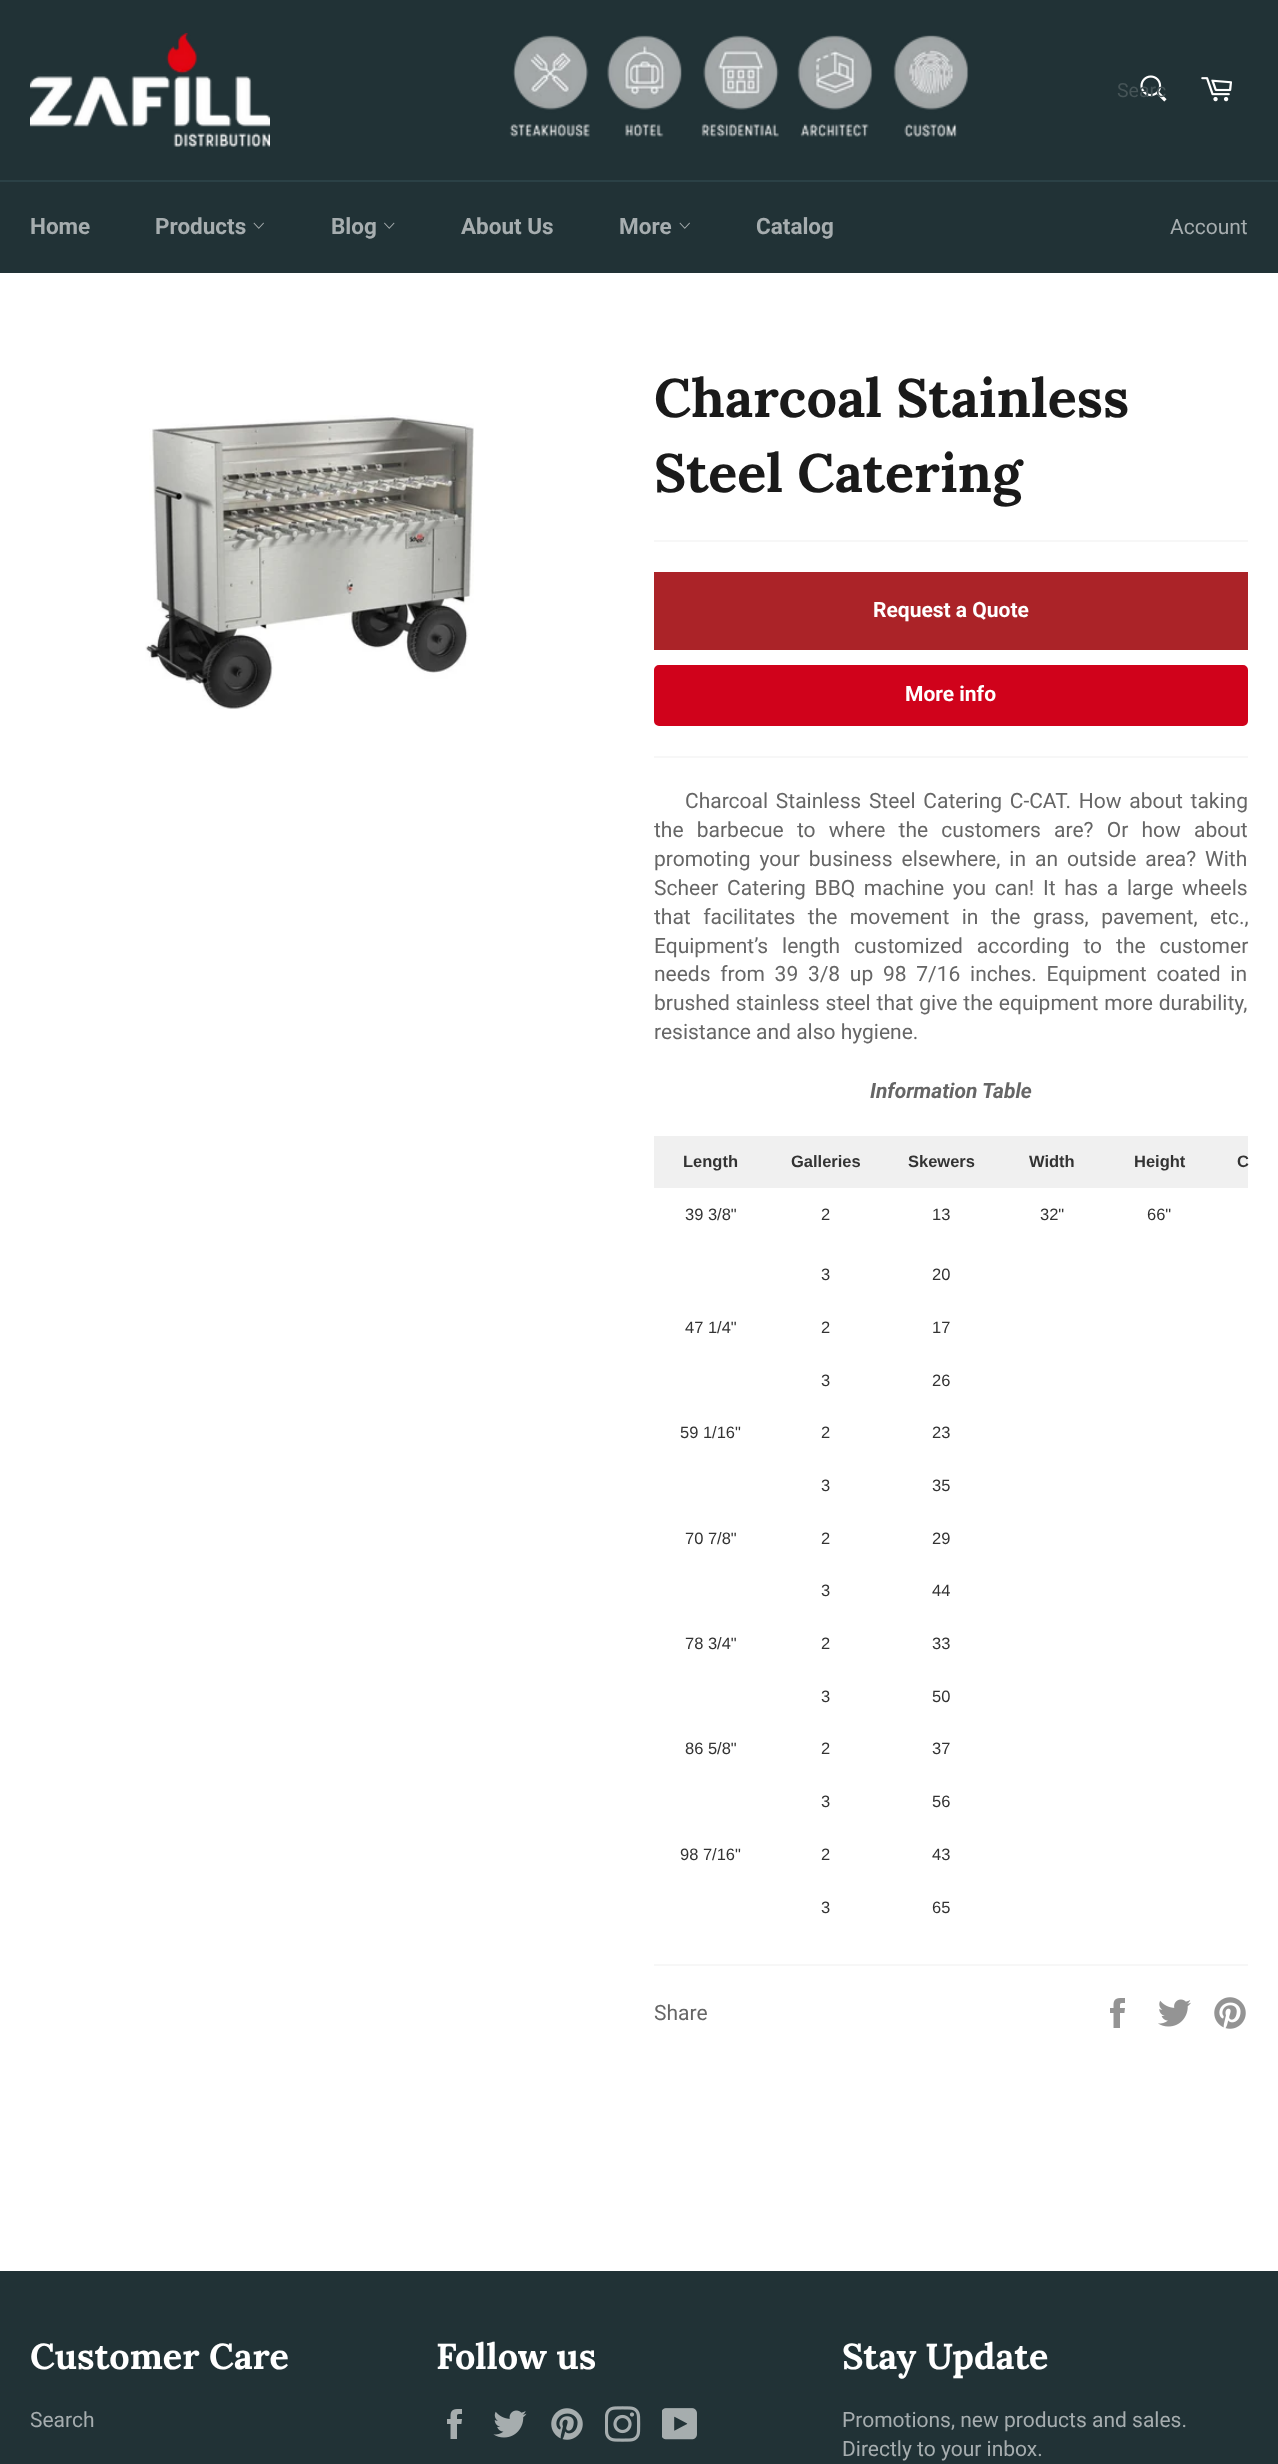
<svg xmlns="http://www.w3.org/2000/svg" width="1278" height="2464">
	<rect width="100%" height="100%" fill="#213236" />
	<image x="30" y="33" width="240" height="114" href="assets/img1.png" />
	<image x="509" y="35" width="81" height="102" href="assets/img2.png" />
	<image x="607" y="35" width="75" height="102" href="assets/img3.png" />
	<image x="701" y="35" width="78" height="102" href="assets/img4.png" />
	<image x="797" y="35" width="76" height="102" href="assets/img5.png" />
	<image x="893" y="35" width="76" height="102" href="assets/img6.png" />
	<image x="1140" y="75" width="27" height="27" href="assets/img7.png" />
	<text x="1117" y="97" font-family="Roboto" font-size="19.5" fill="#465457">Searc</text>
	<image x="1201" y="77" width="31" height="25" href="assets/img8.png" />
	<rect x="0" y="180" width="1278" height="2" fill="#2B4146" />
	<g font-family="Roboto" font-size="22.5" font-weight="700" fill="#A6ADAF">
		<text x="30" y="234">Home</text>
		<text x="155" y="234">Products</text>
	</g>
	<image x="253" y="222" width="11" height="7" href="assets/img9.png" />
	<text x="331" y="234" font-family="Roboto" font-size="22.5" font-weight="700" fill="#A6ADAF">Blog</text>
	<image x="384" y="222" width="11" height="7" href="assets/img10.png" />
	<g font-family="Roboto" font-size="22.5" font-weight="700" fill="#A6ADAF">
		<text x="461" y="234">About Us</text>
		<text x="619" y="234">More</text>
	</g>
	<image x="679" y="222" width="11" height="7" href="assets/img9.png" />
	<text x="756" y="234" font-family="Roboto" font-size="22.5" font-weight="700" fill="#A6ADAF">Catalog</text>
	<text x="1170" y="234" font-family="Roboto" font-size="21" fill="#A6ADAF">Account</text>
	<rect x="0" y="273" width="1278" height="1998" fill="#FFFFFF" />
	<image x="145" y="415" width="329" height="294" href="assets/img11.png" />
	<g font-family="Lora" font-size="54" font-weight="700" fill="#1A1A1A">
		<text x="654" y="417">Charcoal Stainless</text>
		<text x="654" y="492">Steel Catering</text>
	</g>
	<rect x="654" y="540" width="594" height="2" fill="#F7F7F7" />
	<rect x="654" y="572" width="594" height="78" fill="#AB2328" />
	<text x="873" y="617" font-family="Roboto" font-size="21" font-weight="700" fill="#FFFFFF">Request a Quote</text>
	<rect x="655" y="666" width="592" height="59" rx="4" fill="#D0021B" stroke="#D0021B" stroke-width="2" />
	<text x="905" y="701" font-family="Roboto" font-size="21" font-weight="700" fill="#FFFFFF">More info</text>
	<rect x="654" y="756" width="594" height="2" fill="#F7F7F7" />
	<g font-family="Roboto" font-size="21" fill="#666666">
		<text x="685" y="808" word-spacing="2.5">Charcoal Stainless Steel Catering C-CAT. How about taking</text>
		<text x="654" y="837" word-spacing="8">the barbecue to where the customers are? Or how about</text>
		<text x="654" y="866" word-spacing="3.75">promoting your business elsewhere, in an outside area? With</text>
		<text x="654" y="895" word-spacing="3.5">Scheer Catering BBQ machine you can! It has a large wheels</text>
		<text x="654" y="924" word-spacing="7.25">that facilitates the movement in the grass, pavement, etc.,</text>
		<text x="654" y="953" word-spacing="8.75">Equipment’s length customized according to the customer</text>
		<text x="654" y="981" word-spacing="4.5">needs from 39 3/8 up 98 7/16 inches. Equipment coated in</text>
		<text x="654" y="1010" word-spacing="0.75">brushed stainless steel that give the equipment more durability,</text>
		<text x="654" y="1039">resistance and also hygiene.</text>
	</g>
	<text x="870" y="1098" font-family="Roboto" font-size="21" font-weight="700" font-style="italic" fill="#666666">Information Table</text>
	<rect x="654" y="1136" width="594" height="52" fill="#F0F0F0" />
	<g font-family="Liberation Sans" font-size="16.5" font-weight="700" fill="#333333">
		<text x="683" y="1167">Length</text>
		<text x="791" y="1167">Galleries</text>
		<text x="908" y="1167">Skewers</text>
		<text x="1029" y="1167">Width</text>
		<text x="1134" y="1167">Height</text>
		<text x="1237" y="1167">C</text>
	</g>
	<g font-family="Liberation Sans" font-size="16.5" fill="#333333">
		<text x="685" y="1220">39 3/8"</text>
		<text x="821" y="1220">2</text>
		<text x="932" y="1220">13</text>
		<text x="1040" y="1220">32"</text>
		<text x="1147" y="1220">66"</text>
		<text x="821" y="1280">3</text>
		<text x="932" y="1280">20</text>
		<text x="685" y="1333">47 1/4"</text>
		<text x="821" y="1333">2</text>
		<text x="932" y="1333">17</text>
		<text x="821" y="1386">3</text>
		<text x="932" y="1386">26</text>
		<text x="680" y="1438">59 1/16"</text>
		<text x="821" y="1438">2</text>
		<text x="932" y="1438">23</text>
		<text x="821" y="1491">3</text>
		<text x="932" y="1491">35</text>
		<text x="685" y="1544">70 7/8"</text>
		<text x="821" y="1544">2</text>
		<text x="932" y="1544">29</text>
		<text x="821" y="1596">3</text>
		<text x="932" y="1596">44</text>
		<text x="685" y="1649">78 3/4"</text>
		<text x="821" y="1649">2</text>
		<text x="932" y="1649">33</text>
		<text x="821" y="1702">3</text>
		<text x="932" y="1702">50</text>
		<text x="685" y="1754">86 5/8"</text>
		<text x="821" y="1754">2</text>
		<text x="932" y="1754">37</text>
		<text x="821" y="1807">3</text>
		<text x="932" y="1807">56</text>
		<text x="680" y="1860">98 7/16"</text>
		<text x="821" y="1860">2</text>
		<text x="932" y="1860">43</text>
		<text x="821" y="1913">3</text>
		<text x="932" y="1913">65</text>
	</g>
	<rect x="654" y="1964" width="594" height="2" fill="#F7F7F7" />
	<text x="654" y="2020" font-family="Roboto" font-size="21" fill="#666666">Share</text>
	<image x="1110" y="1998" width="15" height="30" href="assets/img12.png" />
	<image x="1158" y="1999" width="33" height="28" href="assets/img13.png" />
	<image x="1214" y="1997" width="32" height="32" href="assets/img14.png" />
	<text x="30" y="2369" font-family="Lora" font-size="36" font-weight="700" fill="#FFFFFF">Customer Care</text>
	<text x="30" y="2427" font-family="Roboto" font-size="21" fill="#A6ADAF">Search</text>
	<text x="436" y="2369" font-family="Lora" font-size="36" font-weight="700" fill="#FFFFFF">Follow us</text>
	<image x="447" y="2409" width="15" height="30" href="assets/img15.png" />
	<image x="493" y="2410" width="34" height="28" href="assets/img16.png" />
	<image x="551" y="2408" width="32" height="32" href="assets/img17.png" />
	<image x="605" y="2406" width="36" height="36" href="assets/img18.png" />
	<image x="662" y="2408" width="35" height="32" href="assets/img19.png" />
	<text x="842" y="2369" font-family="Lora" font-size="36" font-weight="700" fill="#FFFFFF">Stay Update</text>
	<g font-family="Roboto" font-size="21" fill="#A6ADAF">
		<text x="842" y="2427">Promotions, new products and sales.</text>
		<text x="842" y="2456">Directly to your inbox.</text>
	</g>
</svg>
